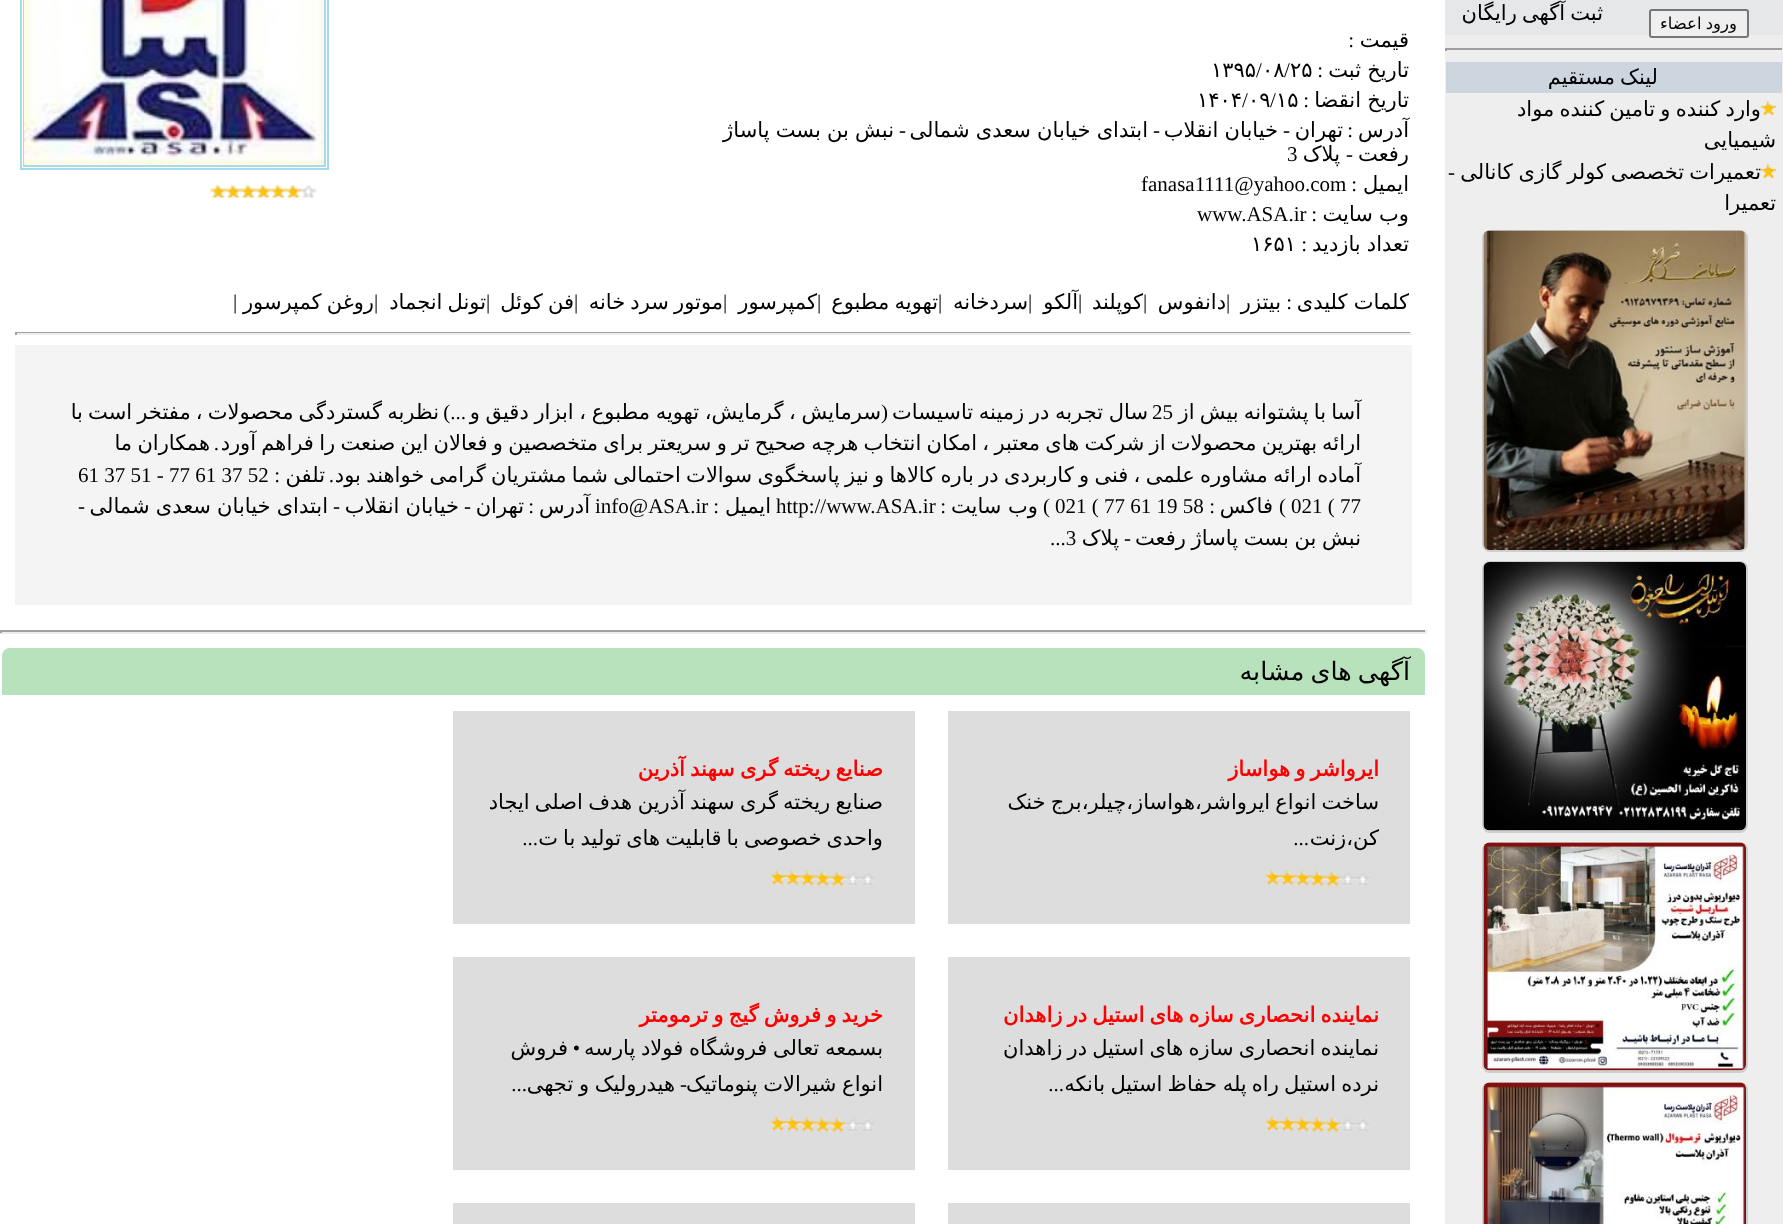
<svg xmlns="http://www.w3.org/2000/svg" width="1783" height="1224">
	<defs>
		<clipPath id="clip1"><rect x="980" y="743" width="399" height="42" /></clipPath>
		<clipPath id="clip2"><rect x="980" y="785" width="399" height="81" /></clipPath>
		<clipPath id="clip3"><rect x="485" y="743" width="399" height="42" /></clipPath>
		<clipPath id="clip4"><rect x="485" y="785" width="399" height="81" /></clipPath>
		<clipPath id="clip5"><rect x="980" y="989" width="399" height="42" /></clipPath>
		<clipPath id="clip6"><rect x="980" y="1031" width="399" height="81" /></clipPath>
		<clipPath id="clip7"><rect x="485" y="989" width="399" height="42" /></clipPath>
		<clipPath id="clip8"><rect x="485" y="1031" width="399" height="81" /></clipPath>
	</defs>
	<rect width="100%" height="100%" fill="#FFFFFF" />
	<rect x="1445" y="35" width="338" height="1189" fill="#EEEEEE" />
	<rect x="1445" y="0" width="338" height="35" fill="#E6E7E8" />
	<rect x="1650" y="10" width="98" height="27" rx="2" fill="#EFEFEF" stroke="#767676" stroke-width="2" />
	<text x="1737" y="29" word-spacing="-1" font-family="DejaVu Sans" font-size="16.5" direction="rtl" fill="#000000">ورود اعضاء</text>
	<text x="1603" y="20" word-spacing="-1.5" font-family="DejaVu Sans" font-size="21" direction="rtl" fill="#000000">ثبت آگهی رایگان</text>
	<rect x="1445" y="48" width="338" height="2" fill="#9F9F9F" />
	<rect x="1782" y="48" width="1" height="3" fill="#EEEEEE" />
	<rect x="1445" y="48" width="2" height="3" fill="#9F9F9F" />
	<rect x="1446" y="62" width="336" height="31" fill="#CDD6DF" />
	<text x="1658" y="84" word-spacing="-1.5" font-family="DejaVu Sans" font-size="21" direction="rtl" fill="#000000">لینک مستقیم</text>
	<image x="1761" y="101" width="15" height="14" href="assets/img1.png" />
	<g font-family="DejaVu Sans" font-size="21" direction="rtl" fill="#000000">
		<text x="1761" y="116" word-spacing="-1.5">وارد کننده و تامین کننده مواد</text>
		<text x="1776" y="147">شیمیایی</text>
	</g>
	<image x="1761" y="164" width="15" height="14" href="assets/img1.png" />
	<g font-family="DejaVu Sans" font-size="21" direction="rtl" fill="#000000">
		<text x="1761" y="179" word-spacing="-1.5">تعمیرات تخصصی</text>
		<text x="1606" y="179" word-spacing="-1">کولر گازی کانالی</text>
	</g>
	<text x="1455" y="179" font-family="Liberation Serif" font-size="21" direction="rtl" fill="#000000">-</text>
	<text x="1776" y="210" font-family="DejaVu Sans" font-size="21" direction="rtl" fill="#000000">تعمیرا</text>
	<rect x="1483" y="231" width="264" height="320" rx="7" fill="none" stroke="#CECECE" stroke-width="2" />
	<image x="1483" y="230" width="263" height="320" href="assets/img2.png" />
	<rect x="1483" y="562" width="264" height="270" rx="7" fill="none" stroke="#CECECE" stroke-width="2" />
	<image x="1483" y="562" width="263" height="269" href="assets/img3.png" />
	<rect x="1483" y="843" width="264" height="229" rx="7" fill="none" stroke="#CECECE" stroke-width="2" />
	<image x="1483" y="842" width="263" height="229" href="assets/img4.png" />
	<rect x="1483" y="1083" width="264" height="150" rx="7" fill="none" stroke="#CECECE" stroke-width="2" />
	<image x="1483" y="1082" width="263" height="142" href="assets/img5.png" />
	<text x="1409" y="47" font-family="DejaVu Sans" font-size="21" direction="rtl" fill="#000000">قیمت</text>
	<text x="1354" y="47" font-family="Liberation Serif" font-size="21" direction="rtl" fill="#000000">:</text>
	<text x="1409" y="77" word-spacing="-0.5" font-family="DejaVu Sans" font-size="21" direction="rtl" fill="#000000">تاریخ ثبت</text>
	<text x="1323" y="77" font-family="Liberation Serif" font-size="21" direction="rtl" fill="#000000">:</text>
	<text x="1284" y="77" font-family="Liberation Serif" font-size="21" fill="#000000">/</text>
	<g font-family="DejaVu Sans" font-size="21" fill="#000000">
		<text x="1290" y="77">۲۵</text>
		<text x="1262" y="77">۰۸</text>
	</g>
	<text x="1256" y="77" font-family="Liberation Serif" font-size="21" fill="#000000">/</text>
	<text x="1211" y="77" font-family="DejaVu Sans" font-size="21" fill="#000000">۱۳۹۵</text>
	<text x="1409" y="107" word-spacing="-0.5" font-family="DejaVu Sans" font-size="21" direction="rtl" fill="#000000">تاریخ انقضا</text>
	<text x="1309" y="107" font-family="Liberation Serif" font-size="21" direction="rtl" fill="#000000">:</text>
	<text x="1276" y="107" font-family="DejaVu Sans" font-size="21" fill="#000000">۱۵</text>
	<text x="1270" y="107" font-family="Liberation Serif" font-size="21" fill="#000000">/</text>
	<text x="1248" y="107" font-family="DejaVu Sans" font-size="21" fill="#000000">۰۹</text>
	<text x="1242" y="107" font-family="Liberation Serif" font-size="21" fill="#000000">/</text>
	<text x="1197" y="107" font-family="DejaVu Sans" font-size="21" fill="#000000">۱۴۰۴</text>
	<text x="1409" y="137" font-family="DejaVu Sans" font-size="21" direction="rtl" fill="#000000">آدرس</text>
	<text x="1353" y="137" font-family="Liberation Serif" font-size="21" direction="rtl" fill="#000000">:</text>
	<text x="1343" y="137" font-family="DejaVu Sans" font-size="21" direction="rtl" fill="#000000">تهران</text>
	<text x="1290" y="137" font-family="Liberation Serif" font-size="21" direction="rtl" fill="#000000">-</text>
	<text x="1278" y="137" word-spacing="-0.5" font-family="DejaVu Sans" font-size="21" direction="rtl" fill="#000000">خیابان انقلاب</text>
	<text x="1160" y="137" font-family="Liberation Serif" font-size="21" direction="rtl" fill="#000000">-</text>
	<text x="1148" y="137" word-spacing="-0.5" font-family="DejaVu Sans" font-size="21" direction="rtl" fill="#000000">ابتدای خیابان سعدی شمالی</text>
	<text x="906" y="137" font-family="Liberation Serif" font-size="21" direction="rtl" fill="#000000">-</text>
	<g font-family="DejaVu Sans" font-size="21" direction="rtl" fill="#000000">
		<text x="894" y="137" word-spacing="-0.5">نبش بن بست پاساژ</text>
		<text x="1409" y="161">رفعت</text>
	</g>
	<text x="1353" y="161" font-family="Liberation Serif" font-size="21" direction="rtl" fill="#000000">-</text>
	<text x="1340" y="161" font-family="DejaVu Sans" font-size="21" direction="rtl" fill="#000000">پلاک</text>
	<text x="1287" y="161" font-family="Liberation Serif" font-size="21" fill="#000000">3</text>
	<text x="1409" y="191" font-family="DejaVu Sans" font-size="21" direction="rtl" fill="#000000">ایمیل</text>
	<text x="1357" y="191" font-family="Liberation Serif" font-size="21" direction="rtl" fill="#000000">:</text>
	<text x="1141" y="191" font-family="Liberation Serif" font-size="21" fill="#000000">fanasa1111@yahoo.com</text>
	<text x="1409" y="221" word-spacing="-0.5" font-family="DejaVu Sans" font-size="21" direction="rtl" fill="#000000">وب سایت</text>
	<text x="1317" y="221" font-family="Liberation Serif" font-size="21" direction="rtl" fill="#000000">:</text>
	<text x="1197" y="221" font-family="Liberation Serif" font-size="21" fill="#000000">www.ASA.ir</text>
	<text x="1409" y="251" word-spacing="-0.5" font-family="DejaVu Sans" font-size="21" direction="rtl" fill="#000000">تعداد بازدید</text>
	<text x="1307" y="251" font-family="Liberation Serif" font-size="21" direction="rtl" fill="#000000">:</text>
	<text x="1251" y="251" font-family="DejaVu Sans" font-size="21" fill="#000000">۱۶۵۱</text>
	<rect x="21" y="-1" width="307" height="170" fill="none" stroke="#A6DBEB" stroke-width="2" />
	<rect x="24" y="-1" width="301" height="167" fill="none" stroke="#A6DBEB" stroke-width="2" />
	<image x="24" y="0" width="300" height="165" href="assets/img6.png" />
	<image x="209" y="185" width="108" height="13" href="assets/img7.png" />
	<text x="1409" y="309" word-spacing="-0.5" font-family="DejaVu Sans" font-size="21" direction="rtl" fill="#000000">کلمات کلیدی</text>
	<text x="1292" y="309" font-family="Liberation Serif" font-size="21" direction="rtl" fill="#000000">:</text>
	<text x="1281" y="309" font-family="DejaVu Sans" font-size="21" direction="rtl" fill="#000000">بیتزر</text>
	<text x="1226" y="309" font-family="Liberation Serif" font-size="21" fill="#000000">|</text>
	<text x="1226" y="309" font-family="DejaVu Sans" font-size="21" direction="rtl" fill="#000000">دانفوس</text>
	<text x="1143" y="309" font-family="Liberation Serif" font-size="21" fill="#000000">|</text>
	<text x="1143" y="309" font-family="DejaVu Sans" font-size="21" direction="rtl" fill="#000000">کوپلند</text>
	<text x="1078" y="309" font-family="Liberation Serif" font-size="21" fill="#000000">|</text>
	<text x="1078" y="309" font-family="DejaVu Sans" font-size="21" direction="rtl" fill="#000000">آلکو</text>
	<text x="1028" y="309" font-family="Liberation Serif" font-size="21" fill="#000000">|</text>
	<text x="1028" y="309" font-family="DejaVu Sans" font-size="21" direction="rtl" fill="#000000">سردخانه</text>
	<text x="938" y="309" font-family="Liberation Serif" font-size="21" fill="#000000">|</text>
	<text x="938" y="309" word-spacing="-1.5" font-family="DejaVu Sans" font-size="21" direction="rtl" fill="#000000">تهویه مطبوع</text>
	<text x="817" y="309" font-family="Liberation Serif" font-size="21" fill="#000000">|</text>
	<text x="817" y="309" font-family="DejaVu Sans" font-size="21" direction="rtl" fill="#000000">کمپرسور</text>
	<text x="723" y="309" font-family="Liberation Serif" font-size="21" fill="#000000">|</text>
	<text x="723" y="309" word-spacing="-1.5" font-family="DejaVu Sans" font-size="21" direction="rtl" fill="#000000">موتور سرد خانه</text>
	<text x="574" y="309" font-family="Liberation Serif" font-size="21" fill="#000000">|</text>
	<text x="574" y="309" word-spacing="-1.5" font-family="DejaVu Sans" font-size="21" direction="rtl" fill="#000000">فن کوئل</text>
	<text x="486" y="309" font-family="Liberation Serif" font-size="21" fill="#000000">|</text>
	<text x="486" y="309" word-spacing="-1.5" font-family="DejaVu Sans" font-size="21" direction="rtl" fill="#000000">تونل انجماد</text>
	<text x="374" y="309" font-family="Liberation Serif" font-size="21" fill="#000000">|</text>
	<text x="374" y="309" word-spacing="-1.5" font-family="DejaVu Sans" font-size="21" direction="rtl" fill="#000000">روغن کمپرسور</text>
	<text x="233" y="309" font-family="Liberation Serif" font-size="21" fill="#000000">|</text>
	<rect x="15" y="332" width="1397" height="1" fill="#9F9F9F" />
	<rect x="1410" y="332" width="2" height="3" fill="#EEEEEE" />
	<rect x="15" y="333" width="1397" height="2" fill="#EEEEEE" />
	<rect x="15" y="332" width="2" height="3" fill="#9F9F9F" />
	<rect x="15" y="345" width="1397" height="260" fill="#F4F4F4" />
	<g font-family="DejaVu Sans" font-size="21" direction="rtl" fill="#000000">
		<text x="1361" y="419" word-spacing="-1.5">آسا با پشتوانه بیش از</text>
		<text x="1148" y="419" word-spacing="-1">سال تجربه در زمینه تاسیسات</text>
		<text x="881" y="419" word-spacing="-1">سرمایش ، گرمایش، تهویه مطبوع ، ابزار دقیق و</text>
	</g>
	<text x="466" y="419" font-family="Liberation Serif" font-size="21" direction="rtl" fill="#000000">...)</text>
	<text x="439" y="419" word-spacing="-1.5" font-family="DejaVu Sans" font-size="21" direction="rtl" fill="#000000">نظربه گستردگی محصولات ، مفتخر است با</text>
	<text x="1152" y="419" font-family="Liberation Serif" font-size="21" fill="#000000">25</text>
	<text x="888" y="419" font-family="Liberation Serif" font-size="21" direction="rtl" fill="#000000">(</text>
	<g font-family="DejaVu Sans" font-size="21" direction="rtl" fill="#000000">
		<text x="1361" y="450">ارائه</text>
		<text x="1317" y="450" word-spacing="-1.4">بهترین محصولات از شرکت های معتبر ، امکان انتخاب هرچه صحیح تر و سریعتر برای متخصصین و فعالان این صنعت را فراهم آورد</text>
	</g>
	<text x="219" y="450" font-family="Liberation Serif" font-size="21" direction="rtl" fill="#000000">.</text>
	<g font-family="DejaVu Sans" font-size="21" direction="rtl" fill="#000000">
		<text x="210" y="450" word-spacing="-1.4">همکاران ما</text>
		<text x="1361" y="482" word-spacing="-1.4">آماده ارائه مشاوره علمی ، فنی و کاربردی در باره کالاها و نیز پاسخگوی سوالات احتمالی شما مشتریان گرامی خواهند بود</text>
	</g>
	<text x="334" y="482" font-family="Liberation Serif" font-size="21" direction="rtl" fill="#000000">.</text>
	<text x="325" y="482" font-family="DejaVu Sans" font-size="21" direction="rtl" fill="#000000">تلفن</text>
	<text x="280" y="482" font-family="Liberation Serif" font-size="21" direction="rtl" fill="#000000">:</text>
	<g font-family="Liberation Serif" font-size="21" fill="#000000">
		<text x="78" y="482">61 37 51 - 77 61 37 52</text>
		<text x="1291" y="513">021 ( 77</text>
	</g>
	<text x="1286" y="513" font-family="Liberation Serif" font-size="21" direction="rtl" fill="#000000">)</text>
	<text x="1273" y="513" font-family="DejaVu Sans" font-size="21" direction="rtl" fill="#000000">فاکس</text>
	<text x="1215" y="513" font-family="Liberation Serif" font-size="21" direction="rtl" fill="#000000">:</text>
	<text x="1055" y="513" font-family="Liberation Serif" font-size="21" fill="#000000">021 ( 77 61 19 58</text>
	<text x="1050" y="513" font-family="Liberation Serif" font-size="21" direction="rtl" fill="#000000">)</text>
	<text x="1038" y="513" font-family="DejaVu Sans" font-size="21" direction="rtl" fill="#000000">وب سایت</text>
	<text x="946" y="513" font-family="Liberation Serif" font-size="21" direction="rtl" fill="#000000">:</text>
	<text x="776" y="513" font-family="Liberation Serif" font-size="21" fill="#000000">http://www.ASA.ir</text>
	<text x="771" y="513" font-family="DejaVu Sans" font-size="21" direction="rtl" fill="#000000">ایمیل</text>
	<text x="719" y="513" font-family="Liberation Serif" font-size="21" direction="rtl" fill="#000000">:</text>
	<text x="595" y="513" font-family="Liberation Serif" font-size="21" fill="#000000">info@ASA.ir</text>
	<text x="590" y="513" font-family="DejaVu Sans" font-size="21" direction="rtl" fill="#000000">آدرس</text>
	<text x="534" y="513" font-family="Liberation Serif" font-size="21" direction="rtl" fill="#000000">:</text>
	<text x="524" y="513" font-family="DejaVu Sans" font-size="21" direction="rtl" fill="#000000">تهران</text>
	<text x="471" y="513" font-family="Liberation Serif" font-size="21" direction="rtl" fill="#000000">-</text>
	<text x="459" y="513" word-spacing="-0.5" font-family="DejaVu Sans" font-size="21" direction="rtl" fill="#000000">خیابان انقلاب</text>
	<text x="340" y="513" font-family="Liberation Serif" font-size="21" direction="rtl" fill="#000000">-</text>
	<text x="328" y="513" word-spacing="-0.5" font-family="DejaVu Sans" font-size="21" direction="rtl" fill="#000000">ابتدای خیابان سعدی شمالی</text>
	<text x="85" y="513" font-family="Liberation Serif" font-size="21" direction="rtl" fill="#000000">-</text>
	<text x="1361" y="545" word-spacing="-1" font-family="DejaVu Sans" font-size="21" direction="rtl" fill="#000000">نبش بن بست پاساژ رفعت</text>
	<text x="1131" y="545" font-family="Liberation Serif" font-size="21" direction="rtl" fill="#000000">-</text>
	<text x="1119" y="545" font-family="DejaVu Sans" font-size="21" direction="rtl" fill="#000000">پلاک</text>
	<text x="1050" y="545" font-family="Liberation Serif" font-size="21" fill="#000000">...3</text>
	<rect x="0" y="630" width="1427" height="2" fill="#9F9F9F" />
	<rect x="1425" y="630" width="2" height="3" fill="#EEEEEE" />
	<rect x="0" y="632" width="1427" height="2" fill="#EEEEEE" />
	<rect x="0" y="630" width="2" height="3" fill="#9F9F9F" />
	<path d="M10 648H1417C1421.5 648 1425 651.5 1425 656V695H2V656C2 651.5 5.5 648 10 648Z" fill="#B8E2BC" />
	<text x="1410" y="680" word-spacing="-2" font-family="DejaVu Sans" font-size="25.5" direction="rtl" fill="#000000">آگهی های مشابه</text>
	<rect x="948" y="711" width="462" height="213" fill="#DDDDDD" />
	<g clip-path="url(#clip1)">
		<text x="1379" y="776" word-spacing="-1.5" font-family="DejaVu Sans" font-size="21" font-weight="700" direction="rtl" fill="#FD0002">ایرواشر و هواساز</text>
	</g>
	<g clip-path="url(#clip2)">
		<text x="1379" y="809" word-spacing="-1.5" font-family="DejaVu Sans" font-size="21" direction="rtl" fill="#000000">ساخت انواع ایرواشر،هواساز،چیلر،برج خنک</text>
	</g>
	<text x="1379" y="845" font-family="DejaVu Sans" font-size="21" direction="rtl" fill="#000000">کن،زنت</text>
	<text x="1309" y="845" font-family="Liberation Serif" font-size="21" direction="rtl" fill="#000000">...</text>
	<image x="1265" y="870" width="105" height="17" href="assets/img8.png" />
	<rect x="453" y="711" width="462" height="213" fill="#DDDDDD" />
	<g clip-path="url(#clip3)">
		<text x="883" y="776" word-spacing="-1.5" font-family="DejaVu Sans" font-size="21" font-weight="700" direction="rtl" fill="#FD0002">صنایع ریخته گری سهند آذرین</text>
	</g>
	<g clip-path="url(#clip4)">
		<text x="883" y="809" word-spacing="-1.5" font-family="DejaVu Sans" font-size="21" direction="rtl" fill="#000000">صنايع ريخته گری سهند آذرين</text>
	</g>
	<text x="632" y="809" word-spacing="-1.5" font-family="DejaVu Sans" font-size="21" direction="rtl" fill="#000000">هدف اصلی ايجاد</text>
	<g clip-path="url(#clip4)">
		<text x="883" y="845" word-spacing="-1.5" font-family="DejaVu Sans" font-size="21" direction="rtl" fill="#000000">واحدی خصوصی با قابليت های توليد با ت</text>
	</g>
	<text x="538" y="845" font-family="Liberation Serif" font-size="21" direction="rtl" fill="#000000">...</text>
	<image x="770" y="870" width="105" height="17" href="assets/img9.png" />
	<rect x="948" y="957" width="462" height="213" fill="#DDDDDD" />
	<g clip-path="url(#clip5)">
		<text x="1379" y="1022" word-spacing="-1.5" font-family="DejaVu Sans" font-size="21" font-weight="700" direction="rtl" fill="#FD0002">نماینده انحصاری سازه های استیل در زاهدان</text>
	</g>
	<g clip-path="url(#clip6)">
		<g font-family="DejaVu Sans" font-size="21" direction="rtl" fill="#000000">
			<text x="1379" y="1055" word-spacing="-1.5">نماینده انحصاری سازه های استیل در زاهدان</text>
			<text x="1379" y="1091" word-spacing="-1.5">نرده استیل راه پله</text>
		</g>
	</g>
	<text x="1217" y="1091" word-spacing="-1.5" font-family="DejaVu Sans" font-size="21" direction="rtl" fill="#000000">حفاظ استیل بانکه</text>
	<text x="1064" y="1091" font-family="Liberation Serif" font-size="21" direction="rtl" fill="#000000">...</text>
	<image x="1265" y="1116" width="105" height="17" href="assets/img8.png" />
	<rect x="453" y="957" width="462" height="213" fill="#DDDDDD" />
	<g clip-path="url(#clip7)">
		<text x="883" y="1022" word-spacing="-1.5" font-family="DejaVu Sans" font-size="21" font-weight="700" direction="rtl" fill="#FD0002">خرید و فروش گیج و ترمومتر</text>
	</g>
	<g clip-path="url(#clip8)">
		<text x="883" y="1055" word-spacing="-1" font-family="DejaVu Sans" font-size="21" direction="rtl" fill="#000000">بسمعه تعالی فروشگاه فولاد پارسه</text>
	</g>
	<text x="580" y="1055" font-family="Liberation Serif" font-size="21" direction="rtl" fill="#000000">•</text>
	<g font-family="DejaVu Sans" font-size="21" direction="rtl" fill="#000000">
		<text x="568" y="1055">فروش</text>
		<text x="883" y="1091" word-spacing="-1">انواع شیرالات پنوماتیک</text>
	</g>
	<text x="687" y="1091" font-family="Liberation Serif" font-size="21" direction="rtl" fill="#000000">-</text>
	<text x="675" y="1091" word-spacing="-1" font-family="DejaVu Sans" font-size="21" direction="rtl" fill="#000000">هیدرولیک و تجهی</text>
	<text x="527" y="1091" font-family="Liberation Serif" font-size="21" direction="rtl" fill="#000000">...</text>
	<image x="770" y="1116" width="105" height="17" href="assets/img9.png" />
	<rect x="948" y="1203" width="462" height="21" fill="#DDDDDD" />
	<rect x="453" y="1203" width="462" height="21" fill="#DDDDDD" />
</svg>
